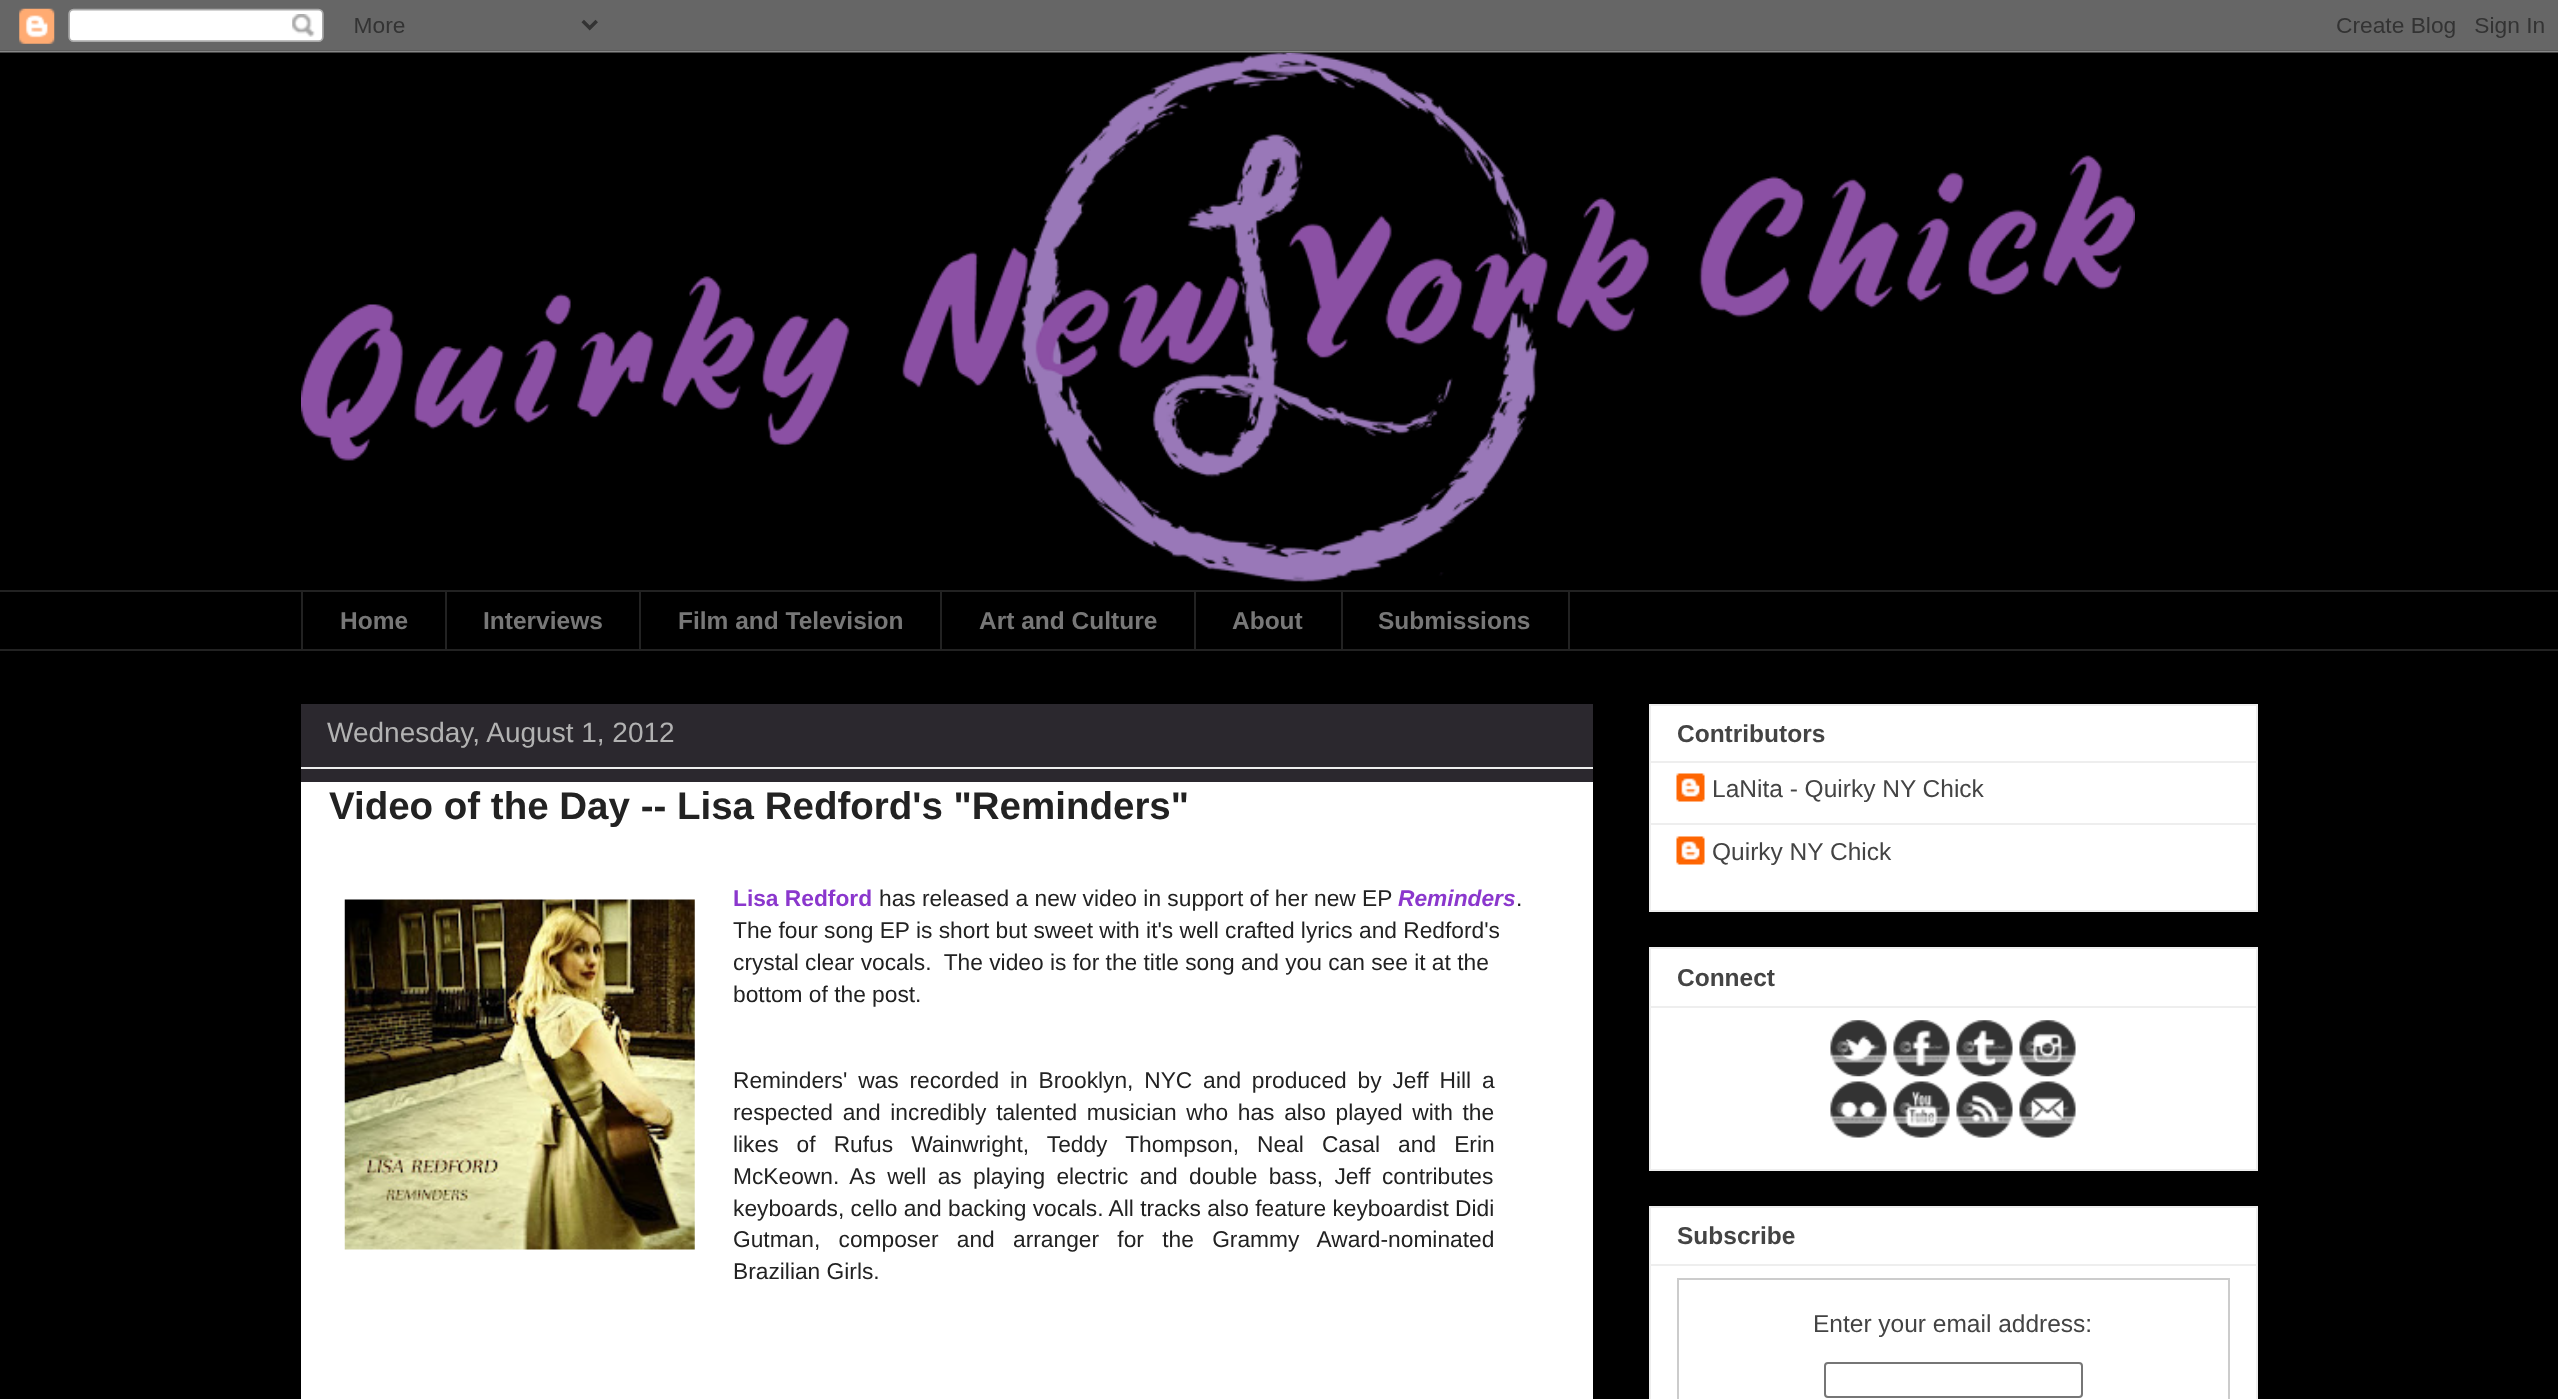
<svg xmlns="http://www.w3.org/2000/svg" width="2558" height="1399">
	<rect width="100%" height="100%" fill="#000000" />
	<image x="301" y="52" width="1834" height="531" href="assets/img2.png" />
	<image x="0" y="0" width="2558" height="53" href="assets/img1.png" />
	<rect x="0" y="590" width="2558" height="2" fill="#222222" />
	<rect x="301" y="590" width="2" height="61" fill="#222222" />
	<text x="340" y="629" font-family="Liberation Sans" font-size="24.5" font-weight="700" fill="#777777">Home</text>
	<rect x="445" y="590" width="2" height="61" fill="#222222" />
	<text x="483" y="629" font-family="Liberation Sans" font-size="24.5" font-weight="700" fill="#777777">Interviews</text>
	<rect x="639" y="590" width="2" height="61" fill="#222222" />
	<text x="678" y="629" font-family="Liberation Sans" font-size="24.5" font-weight="700" fill="#777777">Film and Television</text>
	<rect x="940" y="590" width="2" height="61" fill="#222222" />
	<text x="979" y="629" font-family="Liberation Sans" font-size="24.5" font-weight="700" fill="#777777">Art and Culture</text>
	<rect x="1194" y="590" width="2" height="61" fill="#222222" />
	<text x="1232" y="629" font-family="Liberation Sans" font-size="24.5" font-weight="700" fill="#777777">About</text>
	<rect x="1342" y="591" width="227" height="59" fill="none" stroke="#222222" stroke-width="2" />
	<text x="1378" y="629" font-family="Liberation Sans" font-size="24.5" font-weight="700" fill="#777777">Submissions</text>
	<rect x="0" y="649" width="2558" height="2" fill="#222222" />
	<rect x="301" y="704" width="1292" height="78" fill="#2B282E" />
	<text x="327" y="742" font-family="Liberation Sans" font-size="28" fill="#B2B2B2">Wednesday, August 1, 2012</text>
	<rect x="301" y="767" width="1292" height="2" fill="#EEEEEE" />
	<rect x="301" y="782" width="1292" height="617" fill="#FFFFFF" />
	<text x="329" y="819" font-family="Liberation Sans" font-size="38.5" font-weight="700" fill="#222222">Video of the Day -- Lisa Redford's "Reminders"</text>
	<image x="344" y="899" width="351" height="351" href="assets/img3.png" />
	<text x="733" y="906" font-family="Liberation Sans" font-size="22.75" font-weight="700" fill="#8B37CD">Lisa Redford</text>
	<text x="879" y="906" font-family="Liberation Sans" font-size="22.75" fill="#222222">has released a new video in support of her new EP</text>
	<text x="1398" y="906" font-family="Liberation Sans" font-size="22.75" font-weight="700" font-style="italic" fill="#8B37CD">Reminders</text>
	<g font-family="Liberation Sans" font-size="22.75" fill="#222222">
		<text x="1516" y="906">.</text>
		<text x="733" y="938">The four song EP is short but sweet with it's well crafted lyrics and Redford's</text>
		<text x="733" y="970" xml:space="preserve">crystal clear vocals.  The video is for the title song and you can see it at the</text>
		<text x="733" y="1002">bottom of the post.</text>
		<text x="733" y="1088" word-spacing="4.5">Reminders' was recorded in Brooklyn, NYC and produced by Jeff Hill a</text>
		<text x="733" y="1120" word-spacing="3.4">respected and incredibly talented musician who has also played with the</text>
		<text x="733" y="1152" word-spacing="11.75">likes of Rufus Wainwright, Teddy Thompson, Neal Casal and Erin</text>
		<text x="733" y="1184" word-spacing="5">McKeown. As well as playing electric and double bass, Jeff contributes</text>
		<text x="733" y="1216">keyboards, cello and backing vocals. All tracks also feature keyboardist Didi</text>
		<text x="733" y="1247" word-spacing="12">Gutman, composer and arranger for the Grammy Award-nominated</text>
		<text x="733" y="1279">Brazilian Girls.</text>
	</g>
	<rect x="1650" y="705" width="607" height="206" fill="#FFFFFF" stroke="#EEEEEE" stroke-width="2" />
	<text x="1677" y="742" font-family="Liberation Sans" font-size="24.5" font-weight="700" fill="#444444">Contributors</text>
	<rect x="1650" y="761" width="606" height="2" fill="#EEEEEE" />
	<image x="1676" y="773" width="29" height="29" href="assets/img4.png" />
	<text x="1712" y="797" font-family="Liberation Sans" font-size="24.5" fill="#444444">LaNita - Quirky NY Chick</text>
	<rect x="1650" y="823" width="606" height="2" fill="#EEEEEE" />
	<image x="1676" y="836" width="29" height="29" href="assets/img4.png" />
	<text x="1712" y="860" font-family="Liberation Sans" font-size="24.5" fill="#444444">Quirky NY Chick</text>
	<rect x="1650" y="948" width="607" height="222" fill="#FFFFFF" stroke="#EEEEEE" stroke-width="2" />
	<text x="1677" y="986" font-family="Liberation Sans" font-size="24.5" font-weight="700" fill="#444444">Connect</text>
	<rect x="1650" y="1006" width="606" height="2" fill="#EEEEEE" />
	<image x="1830" y="1020" width="57" height="57" href="assets/img5.png" />
	<image x="1893" y="1020" width="57" height="57" href="assets/img6.png" />
	<image x="1956" y="1020" width="57" height="57" href="assets/img7.png" />
	<image x="2019" y="1020" width="57" height="57" href="assets/img8.png" />
	<image x="1830" y="1081" width="57" height="57" href="assets/img9.png" />
	<image x="1893" y="1081" width="57" height="57" href="assets/img10.png" />
	<image x="1956" y="1081" width="57" height="57" href="assets/img11.png" />
	<image x="2019" y="1081" width="57" height="57" href="assets/img12.png" />
	<rect x="1650" y="1207" width="607" height="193" fill="#FFFFFF" stroke="#EEEEEE" stroke-width="2" />
	<text x="1677" y="1244" font-family="Liberation Sans" font-size="24.5" font-weight="700" fill="#444444">Subscribe</text>
	<rect x="1650" y="1264" width="606" height="2" fill="#EEEEEE" />
	<rect x="1678" y="1279" width="551" height="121" fill="none" stroke="#CCCCCC" stroke-width="2" />
	<text x="1813" y="1332" font-family="Liberation Sans" font-size="24.5" fill="#444444">Enter your email address:</text>
	<rect x="1825" y="1363" width="257" height="34" rx="3" fill="none" stroke="#767676" stroke-width="2" />
</svg>
